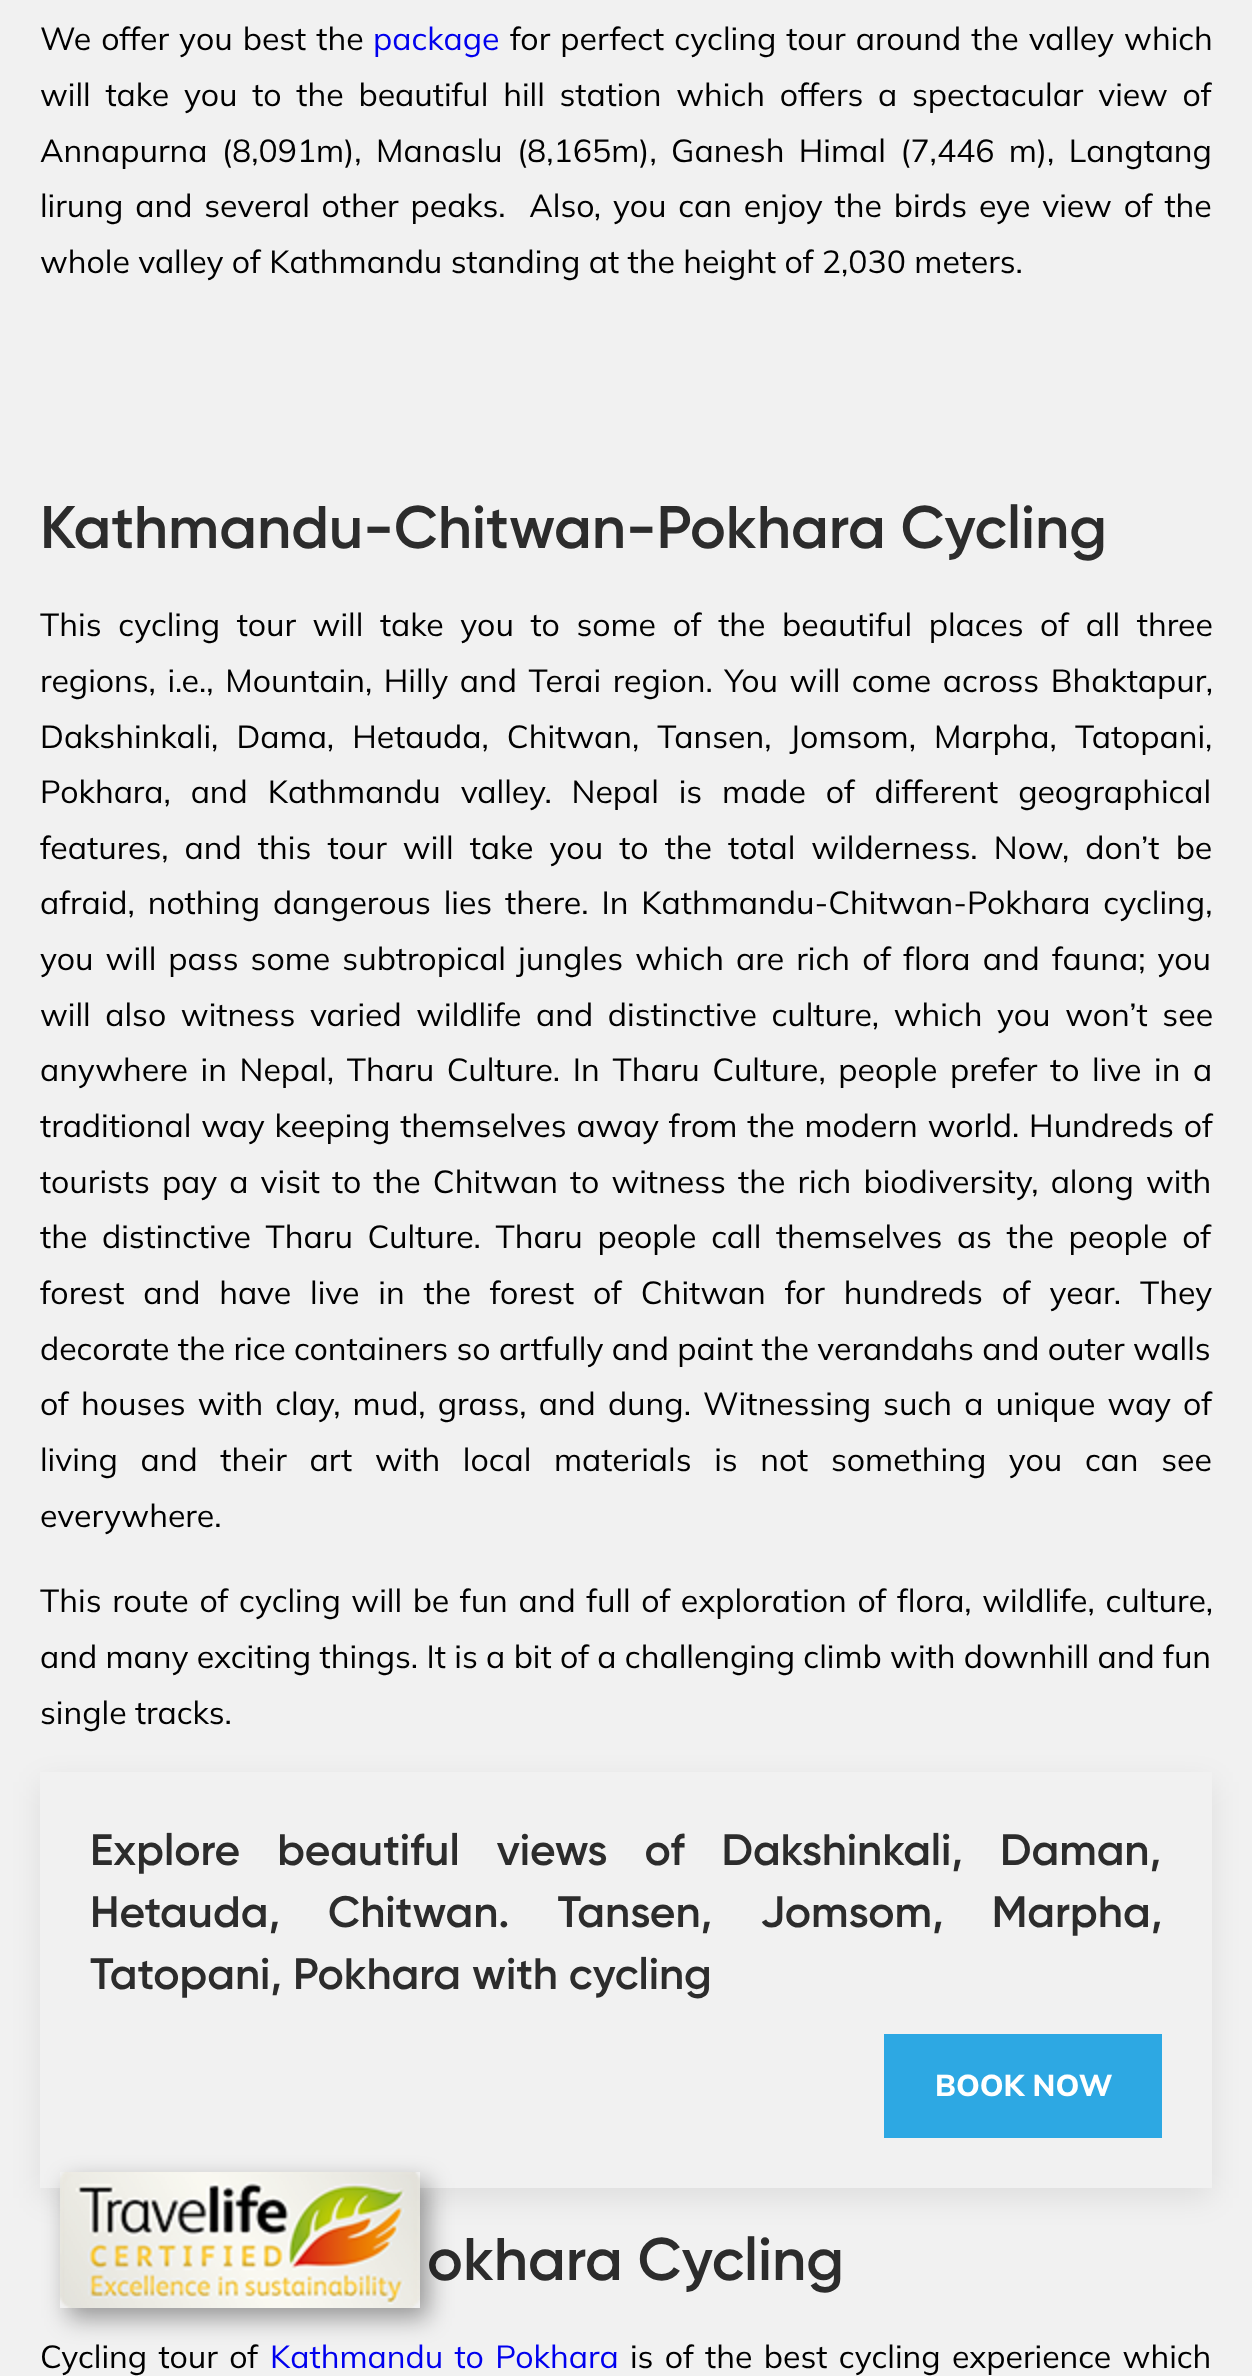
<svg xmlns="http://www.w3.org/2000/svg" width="1252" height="2376">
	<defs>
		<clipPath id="clip1"><path d="M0 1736H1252V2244H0ZM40 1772H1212V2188H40Z" clip-rule="evenodd" /></clipPath>
		<clipPath id="clip2"><path d="M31 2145H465V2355H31ZM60 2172H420V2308H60Z" clip-rule="evenodd" /></clipPath>
	</defs>
	<rect width="100%" height="100%" fill="#F1F1F1" />
	<text x="40" y="50" word-spacing="1.75" font-family="Mulish" font-size="32" fill="#000000">We offer you best the</text>
	<text x="373" y="50" font-family="Mulish" font-size="32" fill="#0000EE">package</text>
	<g font-family="Mulish" font-size="32" fill="#000000">
		<text x="510" y="50" word-spacing="1.75">for perfect cycling tour around the valley which</text>
		<text x="40" y="106" word-spacing="6.4">will take you to the beautiful hill station which offers a spectacular view of</text>
		<text x="40" y="162" word-spacing="6">Annapurna (8,091m), Manaslu (8,165m), Ganesh Himal (7,446 m), Langtang</text>
		<text x="40" y="217" word-spacing="3.5" xml:space="preserve">lirung and several other peaks.  Also, you can enjoy the birds eye view of the</text>
		<text x="40" y="273">whole valley of Kathmandu standing at the height of 2,030 meters.</text>
	</g>
	<text x="40" y="548" font-family="Gilroy" font-size="60" font-weight="600" fill="#2C2C2C">Kathmandu-Chitwan-Pokhara Cycling</text>
	<g font-family="Mulish" font-size="32" fill="#000000">
		<text x="40" y="636" word-spacing="8.25">This cycling tour will take you to some of the beautiful places of all three</text>
		<text x="40" y="692" word-spacing="3.25">regions, i.e., Mountain, Hilly and Terai region. You will come across Bhaktapur,</text>
		<text x="40" y="748" word-spacing="9.75">Dakshinkali, Dama, Hetauda, Chitwan, Tansen, Jomsom, Marpha, Tatopani,</text>
		<text x="40" y="803" word-spacing="11.5">Pokhara, and Kathmandu valley. Nepal is made of different geographical</text>
		<text x="40" y="859" word-spacing="7.75">features, and this tour will take you to the total wilderness. Now, don’t be</text>
		<text x="40" y="914" word-spacing="4.5">afraid, nothing dangerous lies there. In Kathmandu-Chitwan-Pokhara cycling,</text>
		<text x="40" y="970" word-spacing="3.75">you will pass some subtropical jungles which are rich of flora and fauna; you</text>
		<text x="40" y="1026" word-spacing="6.25">will also witness varied wildlife and distinctive culture, which you won’t see</text>
		<text x="40" y="1081" word-spacing="4.25">anywhere in Nepal, Tharu Culture. In Tharu Culture, people prefer to live in a</text>
		<text x="40" y="1137" word-spacing="1.5">traditional way keeping themselves away from the modern world. Hundreds of</text>
		<text x="40" y="1193" word-spacing="3.75">tourists pay a visit to the Chitwan to witness the rich biodiversity, along with</text>
		<text x="40" y="1248" word-spacing="6.25">the distinctive Tharu Culture. Tharu people call themselves as the people of</text>
		<text x="40" y="1304" word-spacing="10.5">forest and have live in the forest of Chitwan for hundreds of year. They</text>
		<text x="40" y="1360">decorate the rice containers so artfully and paint the verandahs and outer walls</text>
		<text x="40" y="1415" word-spacing="3.75">of houses with clay, mud, grass, and dung. Witnessing such a unique way of</text>
		<text x="40" y="1471" word-spacing="14.25">living and their art with local materials is not something you can see</text>
		<text x="40" y="1527">everywhere.</text>
		<text x="40" y="1612" word-spacing="2.25">This route of cycling will be fun and full of exploration of flora, wildlife, culture,</text>
		<text x="40" y="1668">and many exciting things. It is a bit of a challenging climb with downhill and fun</text>
		<text x="40" y="1724">single tracks.</text>
	</g>
	<g clip-path="url(#clip1)">
		<rect x="40" y="1782" width="1172" height="416" fill="#000000" fill-opacity="0.08" filter="blur(15px)" />
	</g>
	<g font-family="Gilroy" font-size="44" font-weight="600" fill="#2C2C2C">
		<text x="90" y="1865" word-spacing="26">Explore beautiful views of Dakshinkali, Daman,</text>
		<text x="90" y="1927" word-spacing="37">Hetauda, Chitwan. Tansen, Jomsom, Marpha,</text>
		<text x="90" y="1989">Tatopani, Pokhara with cycling</text>
	</g>
	<rect x="884" y="2034" width="278" height="104" fill="#2DA8E3" />
	<text x="935" y="2096" font-family="Mulish" font-size="30" font-weight="800" fill="#FFFFFF">BOOK NOW</text>
	<text x="427" y="2280" font-family="Gilroy" font-size="60" font-weight="600" fill="#2C2C2C">okhara Cycling</text>
	<text x="40" y="2368" word-spacing="3" font-family="Mulish" font-size="32" fill="#000000">Cycling tour of</text>
	<text x="270" y="2368" word-spacing="3" font-family="Mulish" font-size="32" fill="#0000EE">Kathmandu to Pokhara</text>
	<text x="630" y="2368" word-spacing="3" font-family="Mulish" font-size="32" fill="#000000">is of the best cycling experience which</text>
	<g clip-path="url(#clip2)">
		<rect x="68" y="2182" width="360" height="136" fill="#000000" fill-opacity="0.38" filter="blur(12px)" />
	</g>
	<image x="60" y="2172" width="360" height="136" href="assets/img1.png" />
</svg>
